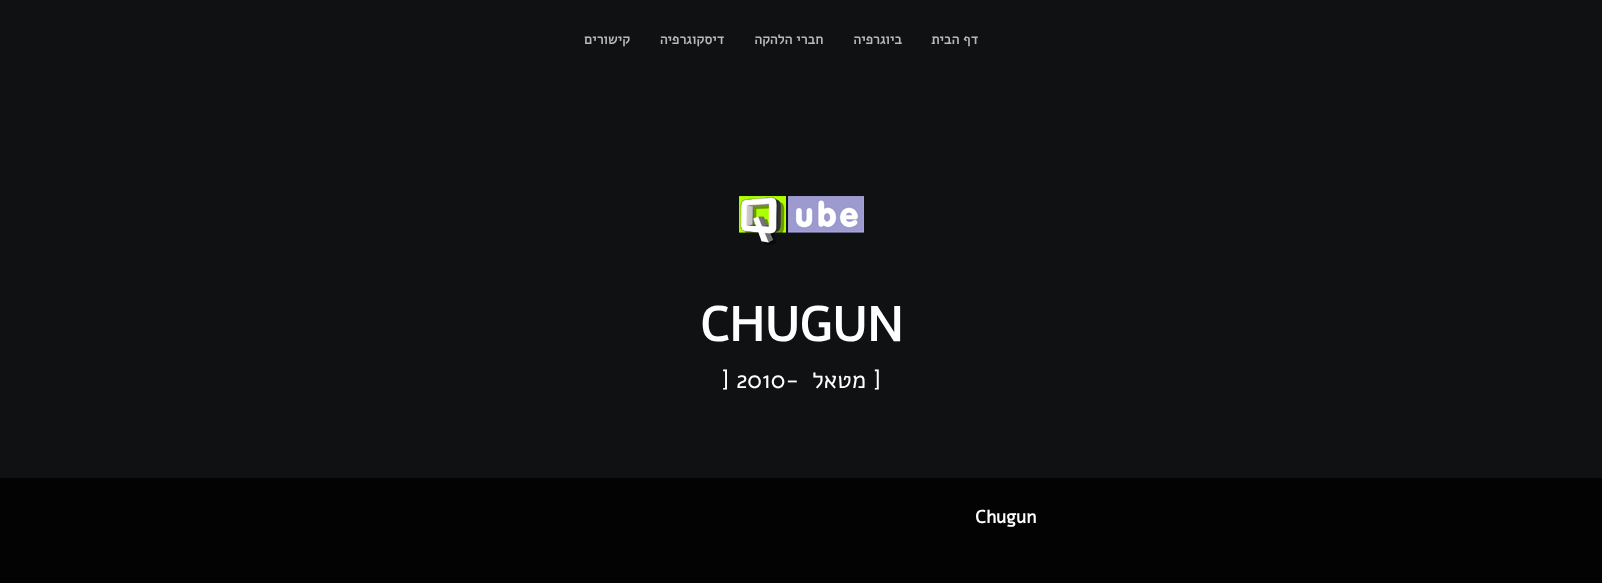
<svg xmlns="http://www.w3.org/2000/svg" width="1602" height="583">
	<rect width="100%" height="100%" fill="#101113" />
	<g font-family="Alef" font-size="14" font-weight="700" direction="rtl" fill="#B7B8B8">
		<text x="978" y="44">דף הבית</text>
		<text x="902" y="44">ביוגרפיה</text>
		<text x="823" y="44">חברי הלהקה</text>
		<text x="724" y="44">דיסקוגרפיה</text>
		<text x="630" y="44">קישורים</text>
	</g>
	<image x="739" y="196" width="125" height="49" href="assets/img1.png" />
	<text x="700" y="341" font-family="Alef" font-size="48" font-weight="700" fill="#FFFFFF">CHUGUN</text>
	<text x="881" y="388" font-family="Alef" font-size="24" direction="rtl" fill="#FFFFFF">[ מטאל</text>
	<text x="721" y="388" font-family="Alef" font-size="24" fill="#FFFFFF">] 2010-</text>
	<rect x="0" y="478" width="1602" height="105" fill="#030304" />
	<text x="975" y="523" font-family="Alef" font-size="18" font-weight="700" fill="#FFFFFF">Chugun</text>
</svg>
